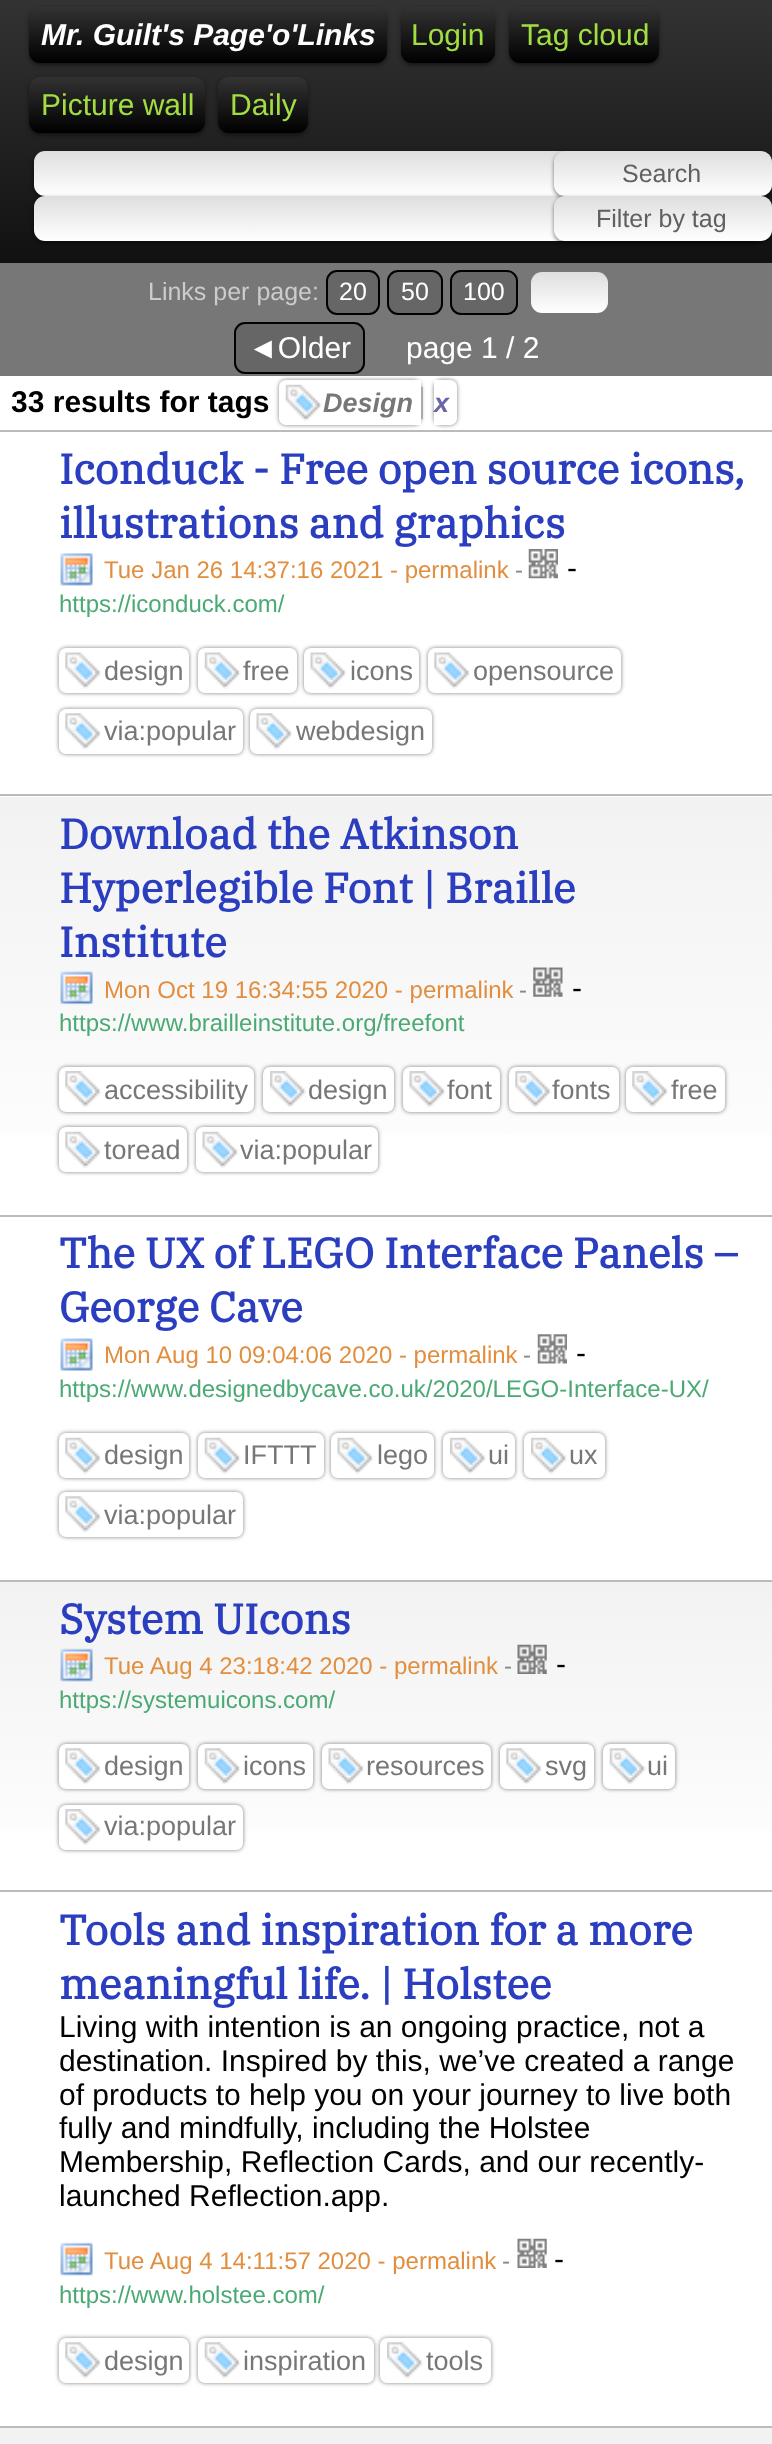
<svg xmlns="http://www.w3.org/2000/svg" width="772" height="2444">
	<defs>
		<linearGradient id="g1" gradientUnits="userSpaceOnUse" x1="387" y1="0" x2="387" y2="263"><stop offset="0" stop-color="#333333" /><stop offset="1" stop-color="#111111" /></linearGradient>
		<linearGradient id="g2" gradientUnits="userSpaceOnUse" x1="208" y1="6.7" x2="208" y2="63"><stop offset="0" stop-color="#333333" /><stop offset="1" stop-color="#000000" /></linearGradient>
		<linearGradient id="g3" gradientUnits="userSpaceOnUse" x1="448" y1="6.7" x2="448" y2="63"><stop offset="0" stop-color="#333333" /><stop offset="1" stop-color="#000000" /></linearGradient>
		<linearGradient id="g4" gradientUnits="userSpaceOnUse" x1="584" y1="6.7" x2="584" y2="63"><stop offset="0" stop-color="#333333" /><stop offset="1" stop-color="#000000" /></linearGradient>
		<linearGradient id="g5" gradientUnits="userSpaceOnUse" x1="117" y1="76" x2="117" y2="133"><stop offset="0" stop-color="#333333" /><stop offset="1" stop-color="#000000" /></linearGradient>
		<linearGradient id="g6" gradientUnits="userSpaceOnUse" x1="263" y1="77" x2="263" y2="133"><stop offset="0" stop-color="#333333" /><stop offset="1" stop-color="#000000" /></linearGradient>
		<linearGradient id="g7" gradientUnits="userSpaceOnUse" x1="398" y1="151" x2="398" y2="196"><stop offset="0" stop-color="#DEDEDE" /><stop offset="1" stop-color="#FFFFFF" /></linearGradient>
		<linearGradient id="g8" gradientUnits="userSpaceOnUse" x1="398" y1="196" x2="398" y2="241"><stop offset="0" stop-color="#DEDEDE" /><stop offset="1" stop-color="#FFFFFF" /></linearGradient>
		<linearGradient id="g9" gradientUnits="userSpaceOnUse" x1="663" y1="151" x2="663" y2="196"><stop offset="0" stop-color="#DEDEDE" /><stop offset="1" stop-color="#FFFFFF" /></linearGradient>
		<linearGradient id="g10" gradientUnits="userSpaceOnUse" x1="663" y1="196" x2="663" y2="241"><stop offset="0" stop-color="#DEDEDE" /><stop offset="1" stop-color="#FFFFFF" /></linearGradient>
		<linearGradient id="g11" gradientUnits="userSpaceOnUse" x1="569" y1="272" x2="569" y2="313"><stop offset="0" stop-color="#DEDEDE" /><stop offset="1" stop-color="#FFFFFF" /></linearGradient>
		<linearGradient id="g12" gradientUnits="userSpaceOnUse" x1="387" y1="797" x2="387" y2="1215"><stop offset="0" stop-color="#F2F2F2" /><stop offset="1" stop-color="#FFFFFF" /></linearGradient>
		<linearGradient id="g13" gradientUnits="userSpaceOnUse" x1="387" y1="1582" x2="387" y2="1890"><stop offset="0" stop-color="#F2F2F2" /><stop offset="1" stop-color="#FFFFFF" /></linearGradient>
		<clipPath id="clip1"><rect x="59" y="2009" width="693" height="203" /></clipPath>
		<linearGradient id="g14" gradientUnits="userSpaceOnUse" x1="387" y1="2428" x2="387" y2="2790"><stop offset="0" stop-color="#F2F2F2" /><stop offset="1" stop-color="#FFFFFF" /></linearGradient>
	</defs>
	<rect width="100%" height="100%" fill="#FFFFFF" />
	<rect x="0" y="0" width="772" height="263" fill="url(#g1)" />
	<rect x="29" y="9" width="358" height="56" rx="11" fill="#000000" fill-opacity="0.5" filter="blur(2px)" />
	<rect x="29" y="7" width="358" height="56" rx="11" fill="url(#g2)" />
	<text x="41" y="45" font-family="Liberation Sans" font-size="30" font-weight="700" font-style="italic" fill="#FFFFFF">Mr. Guilt's Page'o'Links</text>
	<rect x="401" y="9" width="94" height="56" rx="11" fill="#000000" fill-opacity="0.5" filter="blur(2px)" />
	<rect x="401" y="7" width="94" height="56" rx="11" fill="url(#g3)" />
	<text x="411" y="45" font-family="Liberation Sans" font-size="30" fill="#A2DD42">Login</text>
	<rect x="509" y="9" width="150" height="56" rx="11" fill="#000000" fill-opacity="0.5" filter="blur(2px)" />
	<rect x="509" y="7" width="150" height="56" rx="11" fill="url(#g4)" />
	<text x="521" y="45" font-family="Liberation Sans" font-size="30" fill="#A2DD42">Tag cloud</text>
	<rect x="29" y="79" width="176" height="56" rx="11" fill="#000000" fill-opacity="0.5" filter="blur(2px)" />
	<rect x="29" y="77" width="176" height="56" rx="11" fill="url(#g5)" />
	<text x="41" y="115" font-family="Liberation Sans" font-size="30" fill="#A2DD42">Picture wall</text>
	<rect x="218" y="79" width="90" height="56" rx="11" fill="#000000" fill-opacity="0.5" filter="blur(2px)" />
	<rect x="218" y="77" width="90" height="56" rx="11" fill="url(#g6)" />
	<text x="230" y="115" font-family="Liberation Sans" font-size="30" fill="#A2DD42">Daily</text>
	<rect x="34" y="153" width="729" height="45" rx="11" fill="#000000" fill-opacity="0.5" filter="blur(2px)" />
	<rect x="34" y="151" width="729" height="45" rx="11" fill="url(#g7)" />
	<rect x="34" y="198" width="729" height="45" rx="11" fill="#000000" fill-opacity="0.5" filter="blur(2px)" />
	<rect x="34" y="196" width="729" height="45" rx="11" fill="url(#g8)" />
	<rect x="554" y="153" width="218" height="45" rx="11" fill="#000000" fill-opacity="0.5" filter="blur(2px)" />
	<rect x="554" y="151" width="218" height="45" rx="11" fill="url(#g9)" />
	<text x="622" y="182" font-family="Liberation Sans" font-size="25" fill="#606060">Search</text>
	<rect x="554" y="198" width="218" height="45" rx="11" fill="#000000" fill-opacity="0.5" filter="blur(2px)" />
	<rect x="554" y="196" width="218" height="45" rx="11" fill="url(#g10)" />
	<text x="596" y="227" font-family="Liberation Sans" font-size="25" fill="#606060">Filter by tag</text>
	<rect x="0" y="263" width="772" height="113" fill="#777777" />
	<text x="148" y="300" font-family="Liberation Sans" font-size="25" fill="#CCCCCC">Links per page:</text>
	<rect x="327" y="271" width="52" height="43" rx="10" fill="#666666" stroke="#000000" stroke-width="2" />
	<text x="339" y="300" font-family="Liberation Sans" font-size="25" fill="#FFFFFF">20</text>
	<rect x="388" y="271" width="54" height="43" rx="10" fill="#666666" stroke="#000000" stroke-width="2" />
	<text x="401" y="300" font-family="Liberation Sans" font-size="25" fill="#FFFFFF">50</text>
	<rect x="451" y="271" width="66" height="43" rx="10" fill="#666666" stroke="#000000" stroke-width="2" />
	<text x="463" y="300" font-family="Liberation Sans" font-size="25" fill="#FFFFFF">100</text>
	<rect x="531" y="272" width="77" height="41" rx="11" fill="url(#g11)" />
	<rect x="235" y="323" width="129" height="50" rx="10" fill="#666666" stroke="#000000" stroke-width="2" />
	<g font-family="Liberation Sans" font-size="30" fill="#FFFFFF">
		<text x="248" y="358">◄Older</text>
		<text x="406" y="358">page 1 / 2</text>
	</g>
	<text x="11" y="412" font-family="Liberation Sans" font-size="30" font-weight="700" fill="#000000">33 results for tags</text>
	<rect x="0" y="430" width="772" height="2" fill="#BBBBBB" />
	<rect x="279" y="380" width="142" height="45" rx="7" fill="#000000" fill-opacity="0.5" filter="blur(2px)" />
	<path d="M286 380H421V425H286C282 425 279 422 279 418V387C279 383 282 380 286 380Z" fill="#FFFFFF" />
	<image x="285" y="384" width="37" height="37" href="assets/img1.png" />
	<text x="323" y="412" font-family="Liberation Sans" font-size="27" font-weight="700" font-style="italic" fill="#777777">Design</text>
	<rect x="434" y="380" width="23" height="45" rx="7" fill="#000000" fill-opacity="0.5" filter="blur(2px)" />
	<path d="M434 380H450C454 380 457 383 457 387V418C457 422 454 425 450 425H434Z" fill="#FFFFFF" />
	<text x="434" y="412" font-family="Liberation Sans" font-size="27" font-weight="700" font-style="italic" fill="#6767A7">x</text>
	<rect x="421" y="387" width="2" height="32" fill="#AAAAAA" />
	<g font-family="IBM Plex Serif" font-size="42" font-weight="700" fill="#2A3EBF">
		<text x="59" y="484">Iconduck - Free open source icons,</text>
		<text x="59" y="538">illustrations and graphics</text>
	</g>
	<image x="60" y="553" width="33" height="33" href="assets/img2.png" />
	<text x="104" y="578" font-family="Liberation Sans" font-size="24" fill="#E28E3F">Tue Jan 26 14:37:16 2021 - permalink</text>
	<text x="515" y="578" font-family="Liberation Sans" font-size="24" fill="#888888">-</text>
	<image x="528" y="549" width="30" height="30" href="assets/img3.png" />
	<text x="567" y="578" font-family="Liberation Sans" font-size="30" fill="#000000">-</text>
	<text x="59" y="612" font-family="Liberation Sans" font-size="24" fill="#4BAA74">https://iconduck.com/</text>
	<rect x="59" y="648" width="130" height="45" rx="7" fill="#000000" fill-opacity="0.5" filter="blur(2px)" />
	<rect x="59" y="648" width="130" height="45" rx="7" fill="#FFFFFF" />
	<image x="65" y="652" width="36" height="37" href="assets/img4.png" />
	<text x="104" y="680" font-family="Liberation Sans" font-size="27" fill="#777777">design</text>
	<rect x="198" y="648" width="99" height="45" rx="7" fill="#000000" fill-opacity="0.5" filter="blur(2px)" />
	<rect x="198" y="648" width="99" height="45" rx="7" fill="#FFFFFF" />
	<image x="204" y="652" width="37" height="37" href="assets/img5.png" />
	<text x="243" y="680" font-family="Liberation Sans" font-size="27" fill="#777777">free</text>
	<rect x="304" y="648" width="115" height="45" rx="7" fill="#000000" fill-opacity="0.5" filter="blur(2px)" />
	<rect x="304" y="648" width="115" height="45" rx="7" fill="#FFFFFF" />
	<image x="310" y="652" width="37" height="37" href="assets/img6.png" />
	<text x="350" y="680" font-family="Liberation Sans" font-size="27" fill="#777777">icons</text>
	<rect x="428" y="648" width="193" height="45" rx="7" fill="#000000" fill-opacity="0.5" filter="blur(2px)" />
	<rect x="428" y="648" width="193" height="45" rx="7" fill="#FFFFFF" />
	<image x="434" y="652" width="36" height="37" href="assets/img4.png" />
	<text x="473" y="680" font-family="Liberation Sans" font-size="27" fill="#777777">opensource</text>
	<rect x="59" y="709" width="184" height="45" rx="7" fill="#000000" fill-opacity="0.5" filter="blur(2px)" />
	<rect x="59" y="709" width="184" height="45" rx="7" fill="#FFFFFF" />
	<image x="65" y="713" width="36" height="37" href="assets/img7.png" />
	<text x="104" y="740" font-family="Liberation Sans" font-size="27" fill="#777777">via:popular</text>
	<rect x="250" y="709" width="182" height="45" rx="7" fill="#000000" fill-opacity="0.5" filter="blur(2px)" />
	<rect x="250" y="709" width="182" height="45" rx="7" fill="#FFFFFF" />
	<image x="256" y="713" width="37" height="37" href="assets/img8.png" />
	<text x="296" y="740" font-family="Liberation Sans" font-size="27" fill="#777777">webdesign</text>
	<rect x="0" y="797" width="772" height="338" fill="url(#g12)" />
	<rect x="0" y="794" width="772" height="2" fill="#BBBBBB" />
	<g font-family="IBM Plex Serif" font-size="42" font-weight="700" fill="#2A3EBF">
		<text x="59" y="849">Download the Atkinson</text>
		<text x="59" y="903">Hyperlegible Font | Braille</text>
		<text x="59" y="957">Institute</text>
	</g>
	<image x="60" y="971" width="33" height="34" href="assets/img9.png" />
	<text x="104" y="998" font-family="Liberation Sans" font-size="24" fill="#E28E3F">Mon Oct 19 16:34:55 2020 - permalink</text>
	<text x="519" y="998" font-family="Liberation Sans" font-size="24" fill="#888888">-</text>
	<image x="533" y="967" width="30" height="30" href="assets/img10.png" />
	<text x="572" y="998" font-family="Liberation Sans" font-size="30" fill="#000000">-</text>
	<text x="59" y="1031" font-family="Liberation Sans" font-size="24" fill="#4BAA74">https://www.brailleinstitute.org/freefont</text>
	<rect x="59" y="1067" width="195" height="45" rx="7" fill="#000000" fill-opacity="0.5" filter="blur(2px)" />
	<rect x="59" y="1067" width="195" height="45" rx="7" fill="#FFFFFF" />
	<image x="65" y="1071" width="36" height="36" href="assets/img11.png" />
	<text x="104" y="1099" font-family="Liberation Sans" font-size="27" fill="#777777">accessibility</text>
	<rect x="263" y="1067" width="131" height="45" rx="7" fill="#000000" fill-opacity="0.5" filter="blur(2px)" />
	<rect x="263" y="1067" width="131" height="45" rx="7" fill="#FFFFFF" />
	<image x="270" y="1071" width="36" height="36" href="assets/img12.png" />
	<text x="308" y="1099" font-family="Liberation Sans" font-size="27" fill="#777777">design</text>
	<rect x="403" y="1067" width="97" height="45" rx="7" fill="#000000" fill-opacity="0.5" filter="blur(2px)" />
	<rect x="403" y="1067" width="97" height="45" rx="7" fill="#FFFFFF" />
	<image x="409" y="1071" width="37" height="36" href="assets/img13.png" />
	<text x="447" y="1099" font-family="Liberation Sans" font-size="27" fill="#777777">font</text>
	<rect x="509" y="1067" width="110" height="45" rx="7" fill="#000000" fill-opacity="0.5" filter="blur(2px)" />
	<rect x="509" y="1067" width="110" height="45" rx="7" fill="#FFFFFF" />
	<image x="515" y="1071" width="36" height="36" href="assets/img14.png" />
	<text x="552" y="1099" font-family="Liberation Sans" font-size="27" fill="#777777">fonts</text>
	<rect x="626" y="1067" width="99" height="45" rx="7" fill="#000000" fill-opacity="0.5" filter="blur(2px)" />
	<rect x="626" y="1067" width="99" height="45" rx="7" fill="#FFFFFF" />
	<image x="632" y="1071" width="36" height="36" href="assets/img14.png" />
	<text x="671" y="1099" font-family="Liberation Sans" font-size="27" fill="#777777">free</text>
	<rect x="59" y="1127" width="128" height="45" rx="7" fill="#000000" fill-opacity="0.5" filter="blur(2px)" />
	<rect x="59" y="1127" width="128" height="45" rx="7" fill="#FFFFFF" />
	<image x="65" y="1131" width="36" height="37" href="assets/img15.png" />
	<text x="104" y="1159" font-family="Liberation Sans" font-size="27" fill="#777777">toread</text>
	<rect x="196" y="1127" width="182" height="45" rx="7" fill="#000000" fill-opacity="0.5" filter="blur(2px)" />
	<rect x="196" y="1127" width="182" height="45" rx="7" fill="#FFFFFF" />
	<image x="202" y="1131" width="37" height="37" href="assets/img16.png" />
	<text x="240" y="1159" font-family="Liberation Sans" font-size="27" fill="#777777">via:popular</text>
	<rect x="0" y="1215" width="772" height="2" fill="#BBBBBB" />
	<g font-family="IBM Plex Serif" font-size="42" font-weight="700" fill="#2A3EBF">
		<text x="59" y="1268">The UX of LEGO Interface Panels –</text>
		<text x="59" y="1322">George Cave</text>
	</g>
	<image x="60" y="1338" width="33" height="33" href="assets/img17.png" />
	<text x="104" y="1363" font-family="Liberation Sans" font-size="24" fill="#E28E3F">Mon Aug 10 09:04:06 2020 - permalink</text>
	<text x="523" y="1363" font-family="Liberation Sans" font-size="24" fill="#888888">-</text>
	<image x="537" y="1334" width="30" height="30" href="assets/img18.png" />
	<text x="576" y="1363" font-family="Liberation Sans" font-size="30" fill="#000000">-</text>
	<text x="59" y="1397" font-family="Liberation Sans" font-size="24" fill="#4BAA74">https://www.designedbycave.co.uk/2020/LEGO-Interface-UX/</text>
	<rect x="59" y="1433" width="130" height="45" rx="7" fill="#000000" fill-opacity="0.5" filter="blur(2px)" />
	<rect x="59" y="1433" width="130" height="45" rx="7" fill="#FFFFFF" />
	<image x="65" y="1437" width="36" height="37" href="assets/img19.png" />
	<text x="104" y="1464" font-family="Liberation Sans" font-size="27" fill="#777777">design</text>
	<rect x="198" y="1433" width="126" height="45" rx="7" fill="#000000" fill-opacity="0.5" filter="blur(2px)" />
	<rect x="198" y="1433" width="126" height="45" rx="7" fill="#FFFFFF" />
	<image x="204" y="1437" width="37" height="37" href="assets/img20.png" />
	<text x="243" y="1464" font-family="Liberation Sans" font-size="27" fill="#777777">IFTTT</text>
	<rect x="331" y="1433" width="103" height="45" rx="7" fill="#000000" fill-opacity="0.5" filter="blur(2px)" />
	<rect x="331" y="1433" width="103" height="45" rx="7" fill="#FFFFFF" />
	<image x="337" y="1437" width="37" height="37" href="assets/img21.png" />
	<text x="377" y="1464" font-family="Liberation Sans" font-size="27" fill="#777777">lego</text>
	<rect x="443" y="1433" width="72" height="45" rx="7" fill="#000000" fill-opacity="0.5" filter="blur(2px)" />
	<rect x="443" y="1433" width="72" height="45" rx="7" fill="#FFFFFF" />
	<image x="450" y="1437" width="36" height="37" href="assets/img22.png" />
	<text x="488" y="1464" font-family="Liberation Sans" font-size="27" fill="#777777">ui</text>
	<rect x="524" y="1433" width="81" height="45" rx="7" fill="#000000" fill-opacity="0.5" filter="blur(2px)" />
	<rect x="524" y="1433" width="81" height="45" rx="7" fill="#FFFFFF" />
	<image x="531" y="1437" width="36" height="37" href="assets/img23.png" />
	<text x="569" y="1464" font-family="Liberation Sans" font-size="27" fill="#777777">ux</text>
	<rect x="59" y="1492" width="184" height="45" rx="7" fill="#000000" fill-opacity="0.5" filter="blur(2px)" />
	<rect x="59" y="1492" width="184" height="45" rx="7" fill="#FFFFFF" />
	<image x="65" y="1496" width="36" height="37" href="assets/img7.png" />
	<text x="104" y="1524" font-family="Liberation Sans" font-size="27" fill="#777777">via:popular</text>
	<rect x="0" y="1582" width="772" height="249" fill="url(#g13)" />
	<rect x="0" y="1580" width="772" height="2" fill="#BBBBBB" />
	<text x="59" y="1634" font-family="IBM Plex Serif" font-size="42" font-weight="700" fill="#2A3EBF">System UIcons</text>
	<image x="60" y="1648" width="33" height="34" href="assets/img24.png" />
	<text x="104" y="1674" font-family="Liberation Sans" font-size="24" fill="#E28E3F">Tue Aug 4 23:18:42 2020 - permalink</text>
	<text x="504" y="1674" font-family="Liberation Sans" font-size="24" fill="#888888">-</text>
	<image x="517" y="1644" width="30" height="30" href="assets/img25.png" />
	<text x="556" y="1674" font-family="Liberation Sans" font-size="30" fill="#000000">-</text>
	<text x="59" y="1708" font-family="Liberation Sans" font-size="24" fill="#4BAA74">https://systemuicons.com/</text>
	<rect x="59" y="1744" width="130" height="45" rx="7" fill="#000000" fill-opacity="0.5" filter="blur(2px)" />
	<rect x="59" y="1744" width="130" height="45" rx="7" fill="#FFFFFF" />
	<image x="65" y="1748" width="36" height="37" href="assets/img7.png" />
	<text x="104" y="1775" font-family="Liberation Sans" font-size="27" fill="#777777">design</text>
	<rect x="198" y="1744" width="115" height="45" rx="7" fill="#000000" fill-opacity="0.5" filter="blur(2px)" />
	<rect x="198" y="1744" width="115" height="45" rx="7" fill="#FFFFFF" />
	<image x="204" y="1748" width="37" height="37" href="assets/img26.png" />
	<text x="243" y="1775" font-family="Liberation Sans" font-size="27" fill="#777777">icons</text>
	<rect x="322" y="1744" width="169" height="45" rx="7" fill="#000000" fill-opacity="0.5" filter="blur(2px)" />
	<rect x="322" y="1744" width="169" height="45" rx="7" fill="#FFFFFF" />
	<image x="328" y="1748" width="37" height="37" href="assets/img8.png" />
	<text x="366" y="1775" font-family="Liberation Sans" font-size="27" fill="#777777">resources</text>
	<rect x="500" y="1744" width="94" height="45" rx="7" fill="#000000" fill-opacity="0.5" filter="blur(2px)" />
	<rect x="500" y="1744" width="94" height="45" rx="7" fill="#FFFFFF" />
	<image x="506" y="1748" width="36" height="37" href="assets/img27.png" />
	<text x="545" y="1775" font-family="Liberation Sans" font-size="27" fill="#777777">svg</text>
	<rect x="603" y="1744" width="72" height="45" rx="7" fill="#000000" fill-opacity="0.5" filter="blur(2px)" />
	<rect x="603" y="1744" width="72" height="45" rx="7" fill="#FFFFFF" />
	<image x="609" y="1748" width="37" height="37" href="assets/img26.png" />
	<text x="647" y="1775" font-family="Liberation Sans" font-size="27" fill="#777777">ui</text>
	<rect x="59" y="1805" width="184" height="45" rx="7" fill="#000000" fill-opacity="0.5" filter="blur(2px)" />
	<rect x="59" y="1805" width="184" height="45" rx="7" fill="#FFFFFF" />
	<image x="65" y="1809" width="36" height="36" href="assets/img11.png" />
	<text x="104" y="1835" font-family="Liberation Sans" font-size="27" fill="#777777">via:popular</text>
	<rect x="0" y="1890" width="772" height="2" fill="#BBBBBB" />
	<g font-family="IBM Plex Serif" font-size="42" font-weight="700" fill="#2A3EBF">
		<text x="59" y="1945">Tools and inspiration for a more</text>
		<text x="59" y="1999">meaningful life. | Holstee</text>
	</g>
	<g font-family="Liberation Sans" font-size="30" fill="#000000">
		<text x="59" y="2037">Living with intention is an ongoing practice, not a</text>
		<text x="59" y="2071">destination. Inspired by this, we’ve created a range</text>
		<text x="59" y="2105">of products to help you on your journey to live both</text>
		<text x="59" y="2138">fully and mindfully, including the Holstee</text>
		<text x="59" y="2172">Membership, Reflection Cards, and our recently-</text>
	</g>
	<g clip-path="url(#clip1)">
		<text x="59" y="2206" font-family="Liberation Sans" font-size="30" fill="#000000">launched Reflection.app.</text>
	</g>
	<image x="60" y="2242" width="33" height="34" href="assets/img28.png" />
	<text x="104" y="2269" font-family="Liberation Sans" font-size="24" fill="#E28E3F">Tue Aug 4 14:11:57 2020 - permalink</text>
	<text x="502" y="2269" font-family="Liberation Sans" font-size="24" fill="#888888">-</text>
	<image x="517" y="2238" width="30" height="30" href="assets/img29.png" />
	<text x="554" y="2269" font-family="Liberation Sans" font-size="30" fill="#000000">-</text>
	<text x="59" y="2303" font-family="Liberation Sans" font-size="24" fill="#4BAA74">https://www.holstee.com/</text>
	<rect x="59" y="2338" width="130" height="45" rx="7" fill="#000000" fill-opacity="0.5" filter="blur(2px)" />
	<rect x="59" y="2338" width="130" height="45" rx="7" fill="#FFFFFF" />
	<image x="65" y="2342" width="36" height="37" href="assets/img7.png" />
	<text x="104" y="2370" font-family="Liberation Sans" font-size="27" fill="#777777">design</text>
	<rect x="198" y="2338" width="176" height="45" rx="7" fill="#000000" fill-opacity="0.5" filter="blur(2px)" />
	<rect x="198" y="2338" width="176" height="45" rx="7" fill="#FFFFFF" />
	<image x="204" y="2342" width="37" height="37" href="assets/img26.png" />
	<text x="243" y="2370" font-family="Liberation Sans" font-size="27" fill="#777777">inspiration</text>
	<rect x="380" y="2338" width="111" height="45" rx="7" fill="#000000" fill-opacity="0.5" filter="blur(2px)" />
	<rect x="380" y="2338" width="111" height="45" rx="7" fill="#FFFFFF" />
	<image x="387" y="2342" width="36" height="37" href="assets/img30.png" />
	<text x="426" y="2370" font-family="Liberation Sans" font-size="27" fill="#777777">tools</text>
	<rect x="0" y="2428" width="772" height="16" fill="url(#g14)" />
	<rect x="0" y="2426" width="772" height="2" fill="#BBBBBB" />
</svg>
